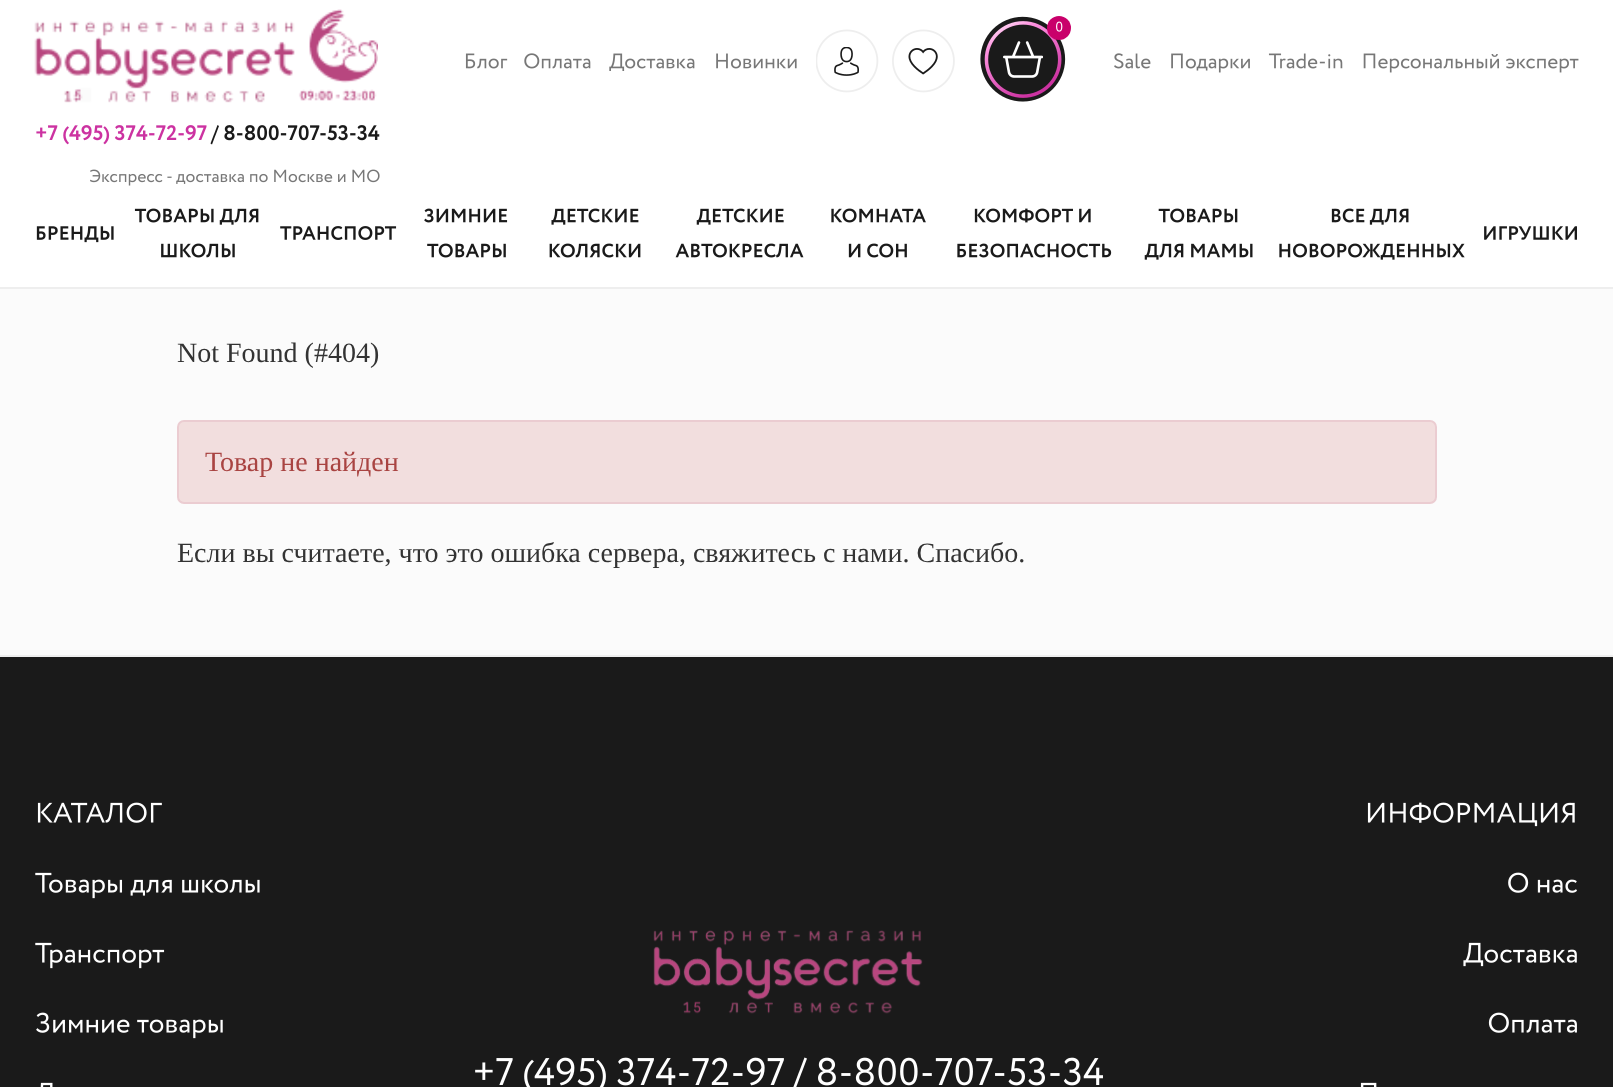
<svg xmlns="http://www.w3.org/2000/svg" width="1613" height="1087">
	<rect width="100%" height="100%" fill="#FBFBFB" />
	<rect x="0" y="0" width="1613" height="287" fill="#FFFFFF" />
	<rect x="0" y="287" width="1613" height="2" fill="#EEEEEE" />
	<image x="34" y="9" width="344" height="94" href="assets/img1.png" />
	<image x="465" y="53" width="43" height="16" href="assets/img2.png" />
	<image x="524" y="53" width="67" height="16" href="assets/img3.png" />
	<image x="609" y="53" width="86" height="18" href="assets/img4.png" />
	<image x="716" y="53" width="81" height="16" href="assets/img5.png" />
	<image x="816" y="29" width="63" height="64" href="assets/img6.png" />
	<image x="892" y="29" width="63" height="64" href="assets/img7.png" />
	<image x="980" y="16" width="86" height="86" href="assets/img8.png" />
	<circle cx="1059" cy="28" r="12" fill="#C9006B" />
	<image x="1056" y="21" width="7" height="11" href="assets/img9.png" />
	<image x="1114" y="53" width="37" height="16" href="assets/img10.png" />
	<image x="1171" y="53" width="79" height="20" href="assets/img11.png" />
	<image x="1268" y="53" width="75" height="16" href="assets/img12.png" />
	<image x="1363" y="53" width="216" height="20" href="assets/img13.png" />
	<image x="36" y="125" width="171" height="20" href="assets/img14.png" />
	<path d="M210.5 143.5L217.5 125L219 126L212 144.5Z" fill="#1A1A1A" />
	<image x="224" y="125" width="156" height="16" href="assets/img15.png" />
	<image x="90" y="169" width="290" height="17" href="assets/img16.png" />
	<image x="36" y="226" width="78" height="17" href="assets/img17.png" />
	<image x="134" y="208" width="125" height="17" href="assets/img18.png" />
	<image x="161" y="243" width="74" height="15" href="assets/img19.png" />
	<image x="280" y="226" width="117" height="14" href="assets/img20.png" />
	<image x="424" y="208" width="84" height="15" href="assets/img21.png" />
	<image x="427" y="243" width="79" height="15" href="assets/img22.png" />
	<image x="551" y="208" width="88" height="17" href="assets/img23.png" />
	<image x="549" y="243" width="92" height="15" href="assets/img24.png" />
	<image x="696" y="208" width="88" height="17" href="assets/img25.png" />
	<image x="675" y="243" width="129" height="15" href="assets/img26.png" />
	<image x="831" y="208" width="95" height="15" href="assets/img27.png" />
	<image x="848" y="243" width="59" height="15" href="assets/img28.png" />
	<image x="974" y="208" width="117" height="15" href="assets/img29.png" />
	<image x="957" y="243" width="155" height="15" href="assets/img30.png" />
	<image x="1158" y="208" width="80" height="15" href="assets/img31.png" />
	<image x="1144" y="243" width="109" height="17" href="assets/img32.png" />
	<image x="1331" y="208" width="78" height="17" href="assets/img33.png" />
	<image x="1279" y="243" width="186" height="17" href="assets/img34.png" />
	<image x="1484" y="226" width="93" height="14" href="assets/img35.png" />
	<text x="177" y="362" font-family="Liberation Serif" font-size="28" fill="#333333">Not Found (#404)</text>
	<rect x="178" y="421" width="1258" height="82" rx="6" fill="#F2DEDE" stroke="#EBCCD1" stroke-width="2" />
	<text x="205" y="471" font-family="Liberation Serif" font-size="28" fill="#A94442">Товар не найден</text>
	<text x="177" y="562" font-family="Liberation Serif" font-size="28" fill="#333333">Если вы считаете, что это ошибка сервера, свяжитесь с нами. Спасибо.</text>
	<rect x="0" y="657" width="1613" height="430" fill="#1A1A1A" />
	<rect x="0" y="655" width="1613" height="2" fill="#EEEEEE" />
	<image x="37" y="802" width="125" height="21" href="assets/img36.png" />
	<image x="35" y="872" width="225" height="27" href="assets/img37.png" />
	<image x="35" y="942" width="130" height="27" href="assets/img38.png" />
	<image x="36" y="1012" width="187" height="27" href="assets/img39.png" />
	<image x="40" y="1082" width="13" height="5" href="assets/img40.png" />
	<image x="653" y="930" width="270" height="84" href="assets/img41.png" />
	<image x="475" y="1057" width="309" height="30" href="assets/img42.png" />
	<path d="M791.5 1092L804.5 1057.5L807 1058.5L794 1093Z" fill="#FFFFFF" />
	<image x="818" y="1057" width="285" height="29" href="assets/img43.png" />
	<image x="1367" y="802" width="208" height="25" href="assets/img44.png" />
	<image x="1508" y="872" width="69" height="21" href="assets/img45.png" />
	<image x="1463" y="942" width="114" height="25" href="assets/img46.png" />
	<image x="1488" y="1012" width="89" height="21" href="assets/img47.png" />
	<image x="1360" y="1082" width="17" height="5" href="assets/img48.png" />
</svg>
